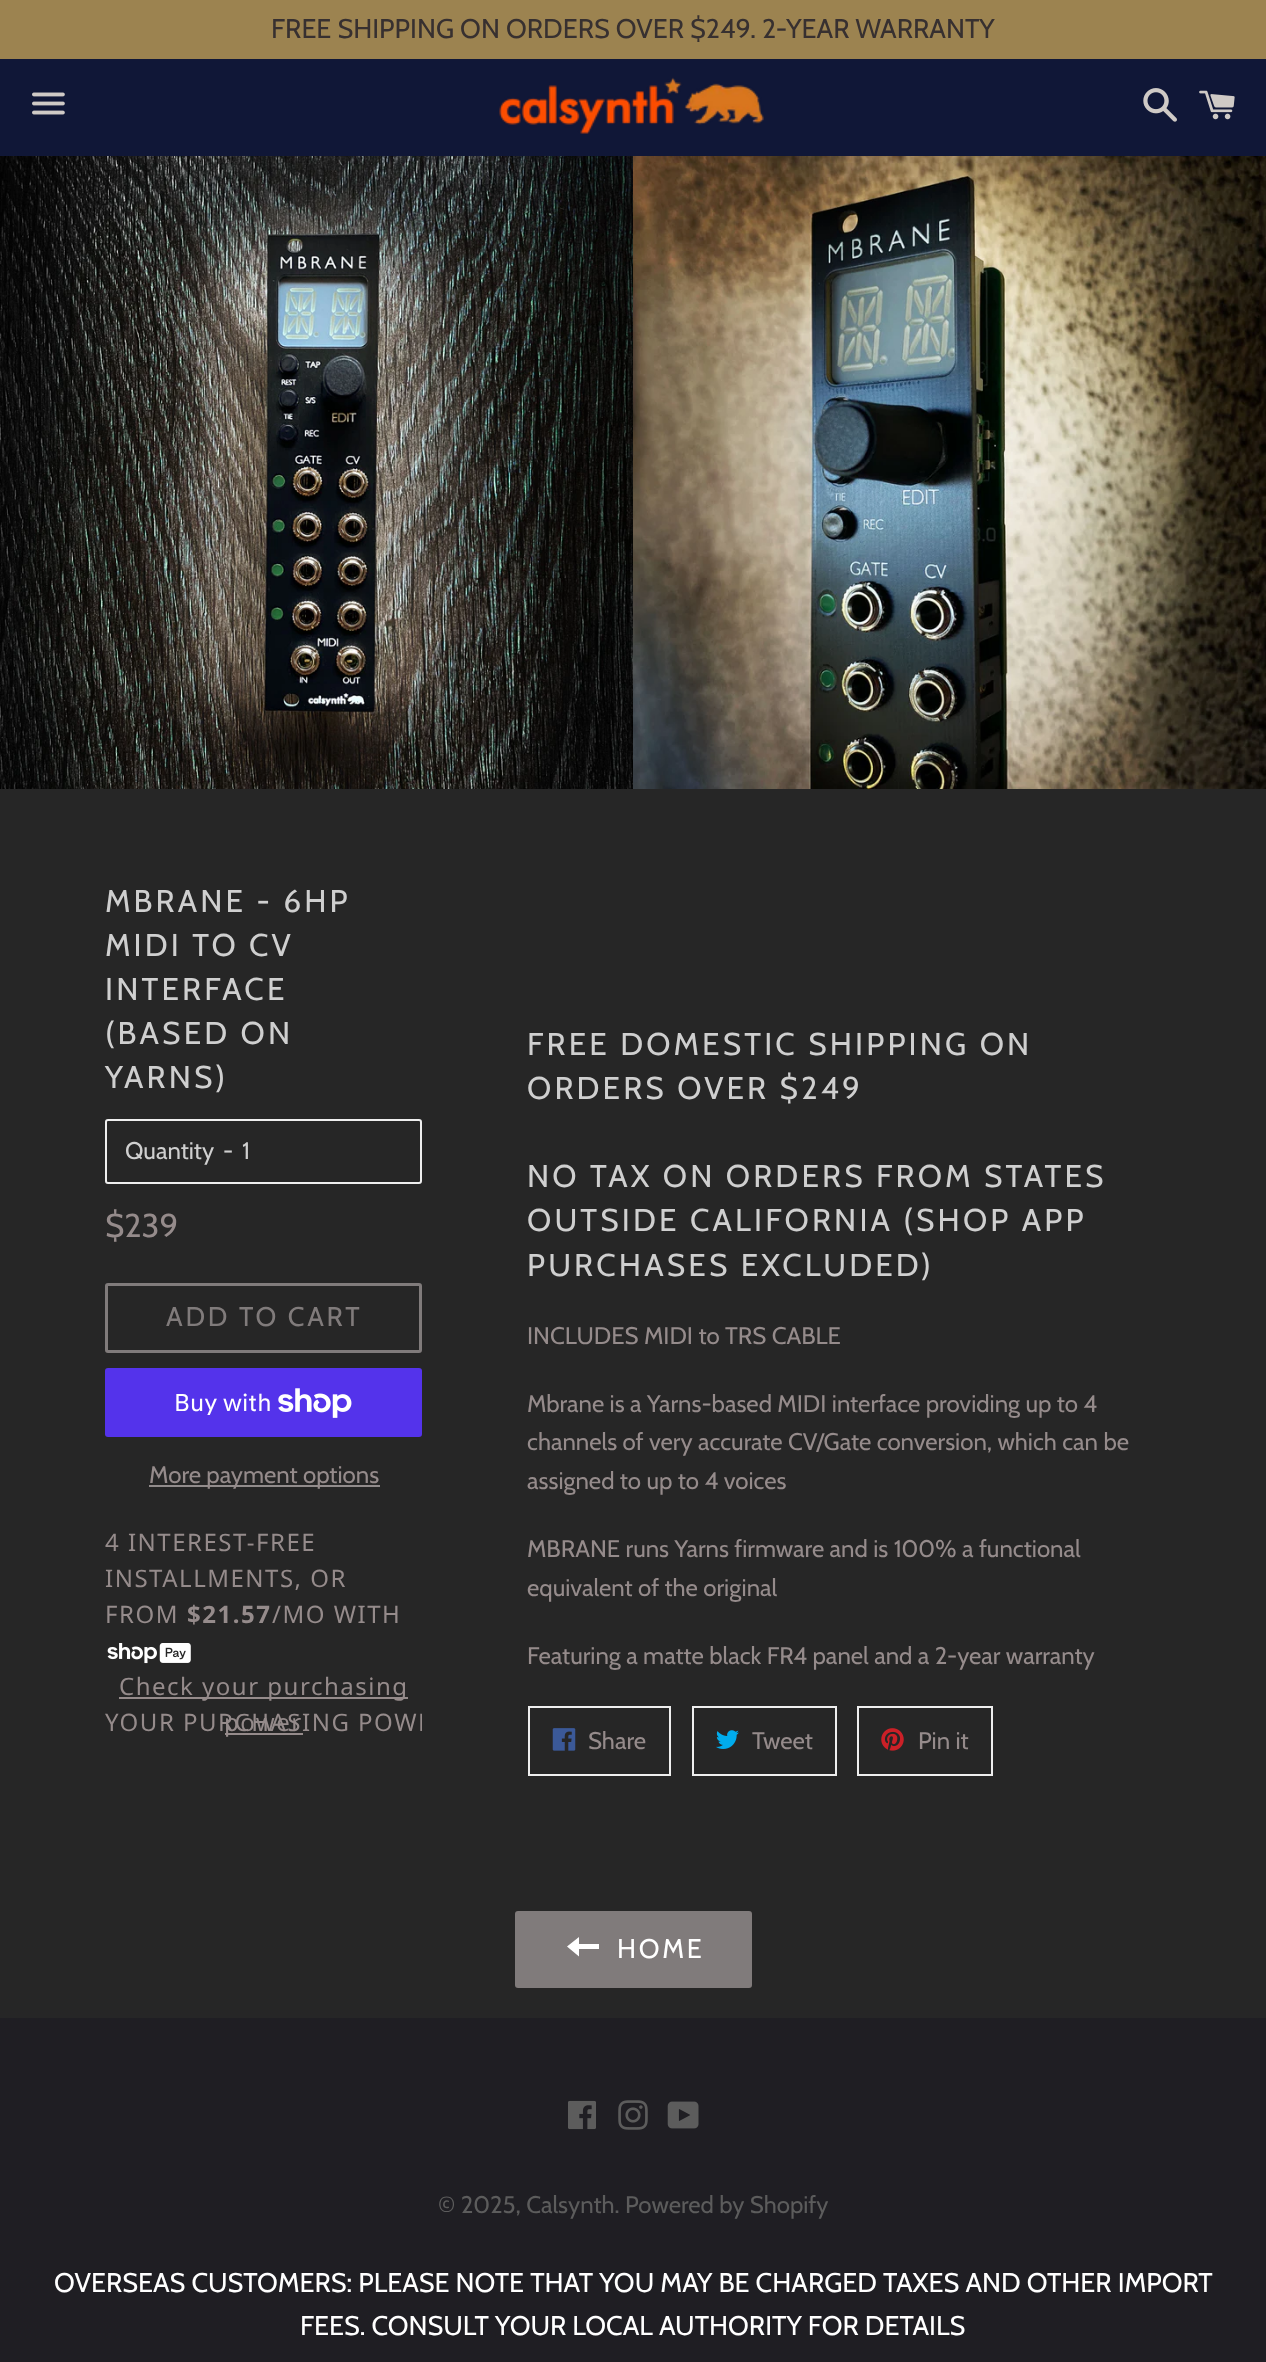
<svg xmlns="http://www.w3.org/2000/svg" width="1266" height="2362">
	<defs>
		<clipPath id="clip1"><rect x="105" y="1668" width="317" height="72" /></clipPath>
	</defs>
	<rect width="100%" height="100%" fill="#262626" />
	<rect x="0" y="0" width="1266" height="59" fill="#9C8350" />
	<text x="271" y="38" font-family="Cabin" font-size="27" fill="#373030">FREE SHIPPING ON ORDERS OVER $249. 2-YEAR WARRANTY</text>
	<rect x="0" y="59" width="1266" height="97" fill="#101737" />
	<image x="32" y="92" width="33" height="23" href="assets/img1.png" />
	<image x="499" y="77" width="265" height="57" href="assets/img2.png" />
	<image x="1143" y="88" width="34" height="34" href="assets/img3.png" />
	<image x="1199" y="90" width="36" height="30" href="assets/img4.png" />
	<image x="0" y="156" width="633" height="633" href="assets/img5.png" />
	<image x="633" y="156" width="633" height="633" href="assets/img6.png" />
	<g font-family="Cabin" font-size="31.5" letter-spacing="3.15" fill="#CFCFCF">
		<text x="105" y="912">MBRANE - 6HP</text>
		<text x="105" y="956">MIDI TO CV</text>
		<text x="105" y="1000">INTERFACE</text>
		<text x="105" y="1044">(BASED ON</text>
		<text x="105" y="1088">YARNS)</text>
	</g>
	<rect x="106" y="1120" width="315" height="63" rx="2" fill="none" stroke="#EEEEEE" stroke-width="2" />
	<g font-family="Cabin" font-size="24" fill="#CFCFCF">
		<text x="125" y="1159">Quantity</text>
		<text x="223" y="1159">-</text>
		<text x="242" y="1159">1</text>
	</g>
	<text x="105" y="1237" font-family="Cabin" font-size="33" fill="#958B8B">$239</text>
	<rect x="106.5" y="1284.5" width="314" height="67" rx="1.5" fill="none" stroke="#807B7B" stroke-width="3" />
	<text x="166" y="1326" font-family="Cabin" font-size="27" letter-spacing="2.75" fill="#807B7B">ADD TO CART</text>
	<rect x="105" y="1368" width="317" height="69" rx="3" fill="#5433EB" />
	<text x="174" y="1411" font-family="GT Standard" font-size="24" fill="#FFFFFF">Buy with</text>
	<image x="278" y="1388" width="74" height="30" href="assets/img7.png" />
	<rect x="149" y="1485" width="231" height="2" fill="#928C8C" />
	<text x="149" y="1483" font-family="Cabin" font-size="24" fill="#958B8B">More payment options</text>
	<g font-family="Noto Sans" font-size="24" letter-spacing="1.5" fill="#958B8B">
		<text x="105" y="1551">4 INTEREST-FREE</text>
		<text x="105" y="1587">INSTALLMENTS, OR</text>
		<text x="105" y="1623">FROM</text>
	</g>
	<text x="187" y="1623" font-family="Noto Sans" font-size="24" font-weight="700" letter-spacing="1.5" fill="#958B8B">$21.57</text>
	<text x="272" y="1623" font-family="Noto Sans" font-size="24" letter-spacing="1.5" fill="#958B8B">/MO WITH</text>
	<image x="107" y="1643" width="84" height="21" href="assets/img8.png" />
	<rect x="119" y="1697" width="289" height="2" fill="#958B8B" />
	<text x="119" y="1695" font-family="Noto Sans" font-size="24" letter-spacing="1.5" fill="#958B8B">Check your purchasing</text>
	<rect x="225" y="1733" width="78" height="2" fill="#958B8B" />
	<text x="224" y="1731" font-family="Noto Sans" font-size="24" letter-spacing="1.5" fill="#958B8B">power</text>
	<g clip-path="url(#clip1)">
		<text x="105" y="1731" font-family="Noto Sans" font-size="24" letter-spacing="1.5" fill="#958B8B">YOUR PURCHASING POWE</text>
	</g>
	<g font-family="Cabin" font-size="31.5" letter-spacing="3.15" fill="#CFCFCF">
		<text x="527" y="1055">FREE DOMESTIC SHIPPING ON</text>
		<text x="527" y="1099">ORDERS OVER $249</text>
		<text x="527" y="1187">NO TAX ON ORDERS FROM STATES</text>
		<text x="527" y="1231">OUTSIDE CALIFORNIA (SHOP APP</text>
		<text x="527" y="1276">PURCHASES EXCLUDED)</text>
	</g>
	<g font-family="Cabin" font-size="24" fill="#958B8B">
		<text x="527" y="1344">INCLUDES MIDI to TRS CABLE</text>
		<text x="527" y="1412">Mbrane is a Yarns-based MIDI interface providing up to 4</text>
		<text x="527" y="1450">channels of very accurate CV/Gate conversion, which can be</text>
		<text x="527" y="1489">assigned to up to 4 voices</text>
		<text x="527" y="1557">MBRANE runs Yarns firmware and is 100% a functional</text>
		<text x="527" y="1596">equivalent of the original</text>
		<text x="527" y="1664">Featuring a matte black FR4 panel and a 2-year warranty</text>
	</g>
	<rect x="529" y="1707" width="141" height="68" fill="none" stroke="#EEEEEE" stroke-width="2" />
	<image x="552" y="1728" width="24" height="23" href="assets/img9.png" />
	<text x="588" y="1749" font-family="Cabin" font-size="24" fill="#958B8B">Share</text>
	<rect x="693" y="1707" width="143" height="68" fill="none" stroke="#EEEEEE" stroke-width="2" />
	<image x="716" y="1730" width="23" height="19" href="assets/img10.png" />
	<text x="752" y="1749" font-family="Cabin" font-size="24" fill="#958B8B">Tweet</text>
	<rect x="858" y="1707" width="134" height="68" fill="none" stroke="#EEEEEE" stroke-width="2" />
	<image x="881" y="1728" width="23" height="23" href="assets/img11.png" />
	<text x="918" y="1749" font-family="Cabin" font-size="24" fill="#958B8B">Pin it</text>
	<rect x="515" y="1911" width="237" height="77" rx="3" fill="#807B7B" />
	<path d="M579 1944V1937L567 1946.5L579 1956.5V1949H599V1944Z" fill="#FFFFFF" />
	<text x="617" y="1958" font-family="Cabin" font-size="27" letter-spacing="2.75" fill="#FFFFFF">HOME</text>
	<rect x="0" y="2018" width="1266" height="344" fill="#1F1E23" />
	<image x="568" y="2100" width="28" height="30" href="assets/img12.png" />
	<image x="618" y="2100" width="30" height="30" href="assets/img13.png" />
	<image x="667" y="2101" width="32" height="28" href="assets/img14.png" />
	<text x="438" y="2213" font-family="Cabin" font-size="24" fill="#5C5C5C">© 2025, Calsynth. Powered by Shopify</text>
	<g font-family="Cabin" font-size="27" fill="#FFFFFF">
		<text x="54" y="2292">OVERSEAS CUSTOMERS: PLEASE NOTE THAT YOU MAY BE CHARGED TAXES AND OTHER IMPORT</text>
		<text x="300" y="2335">FEES. CONSULT YOUR LOCAL AUTHORITY FOR DETAILS</text>
	</g>
</svg>
